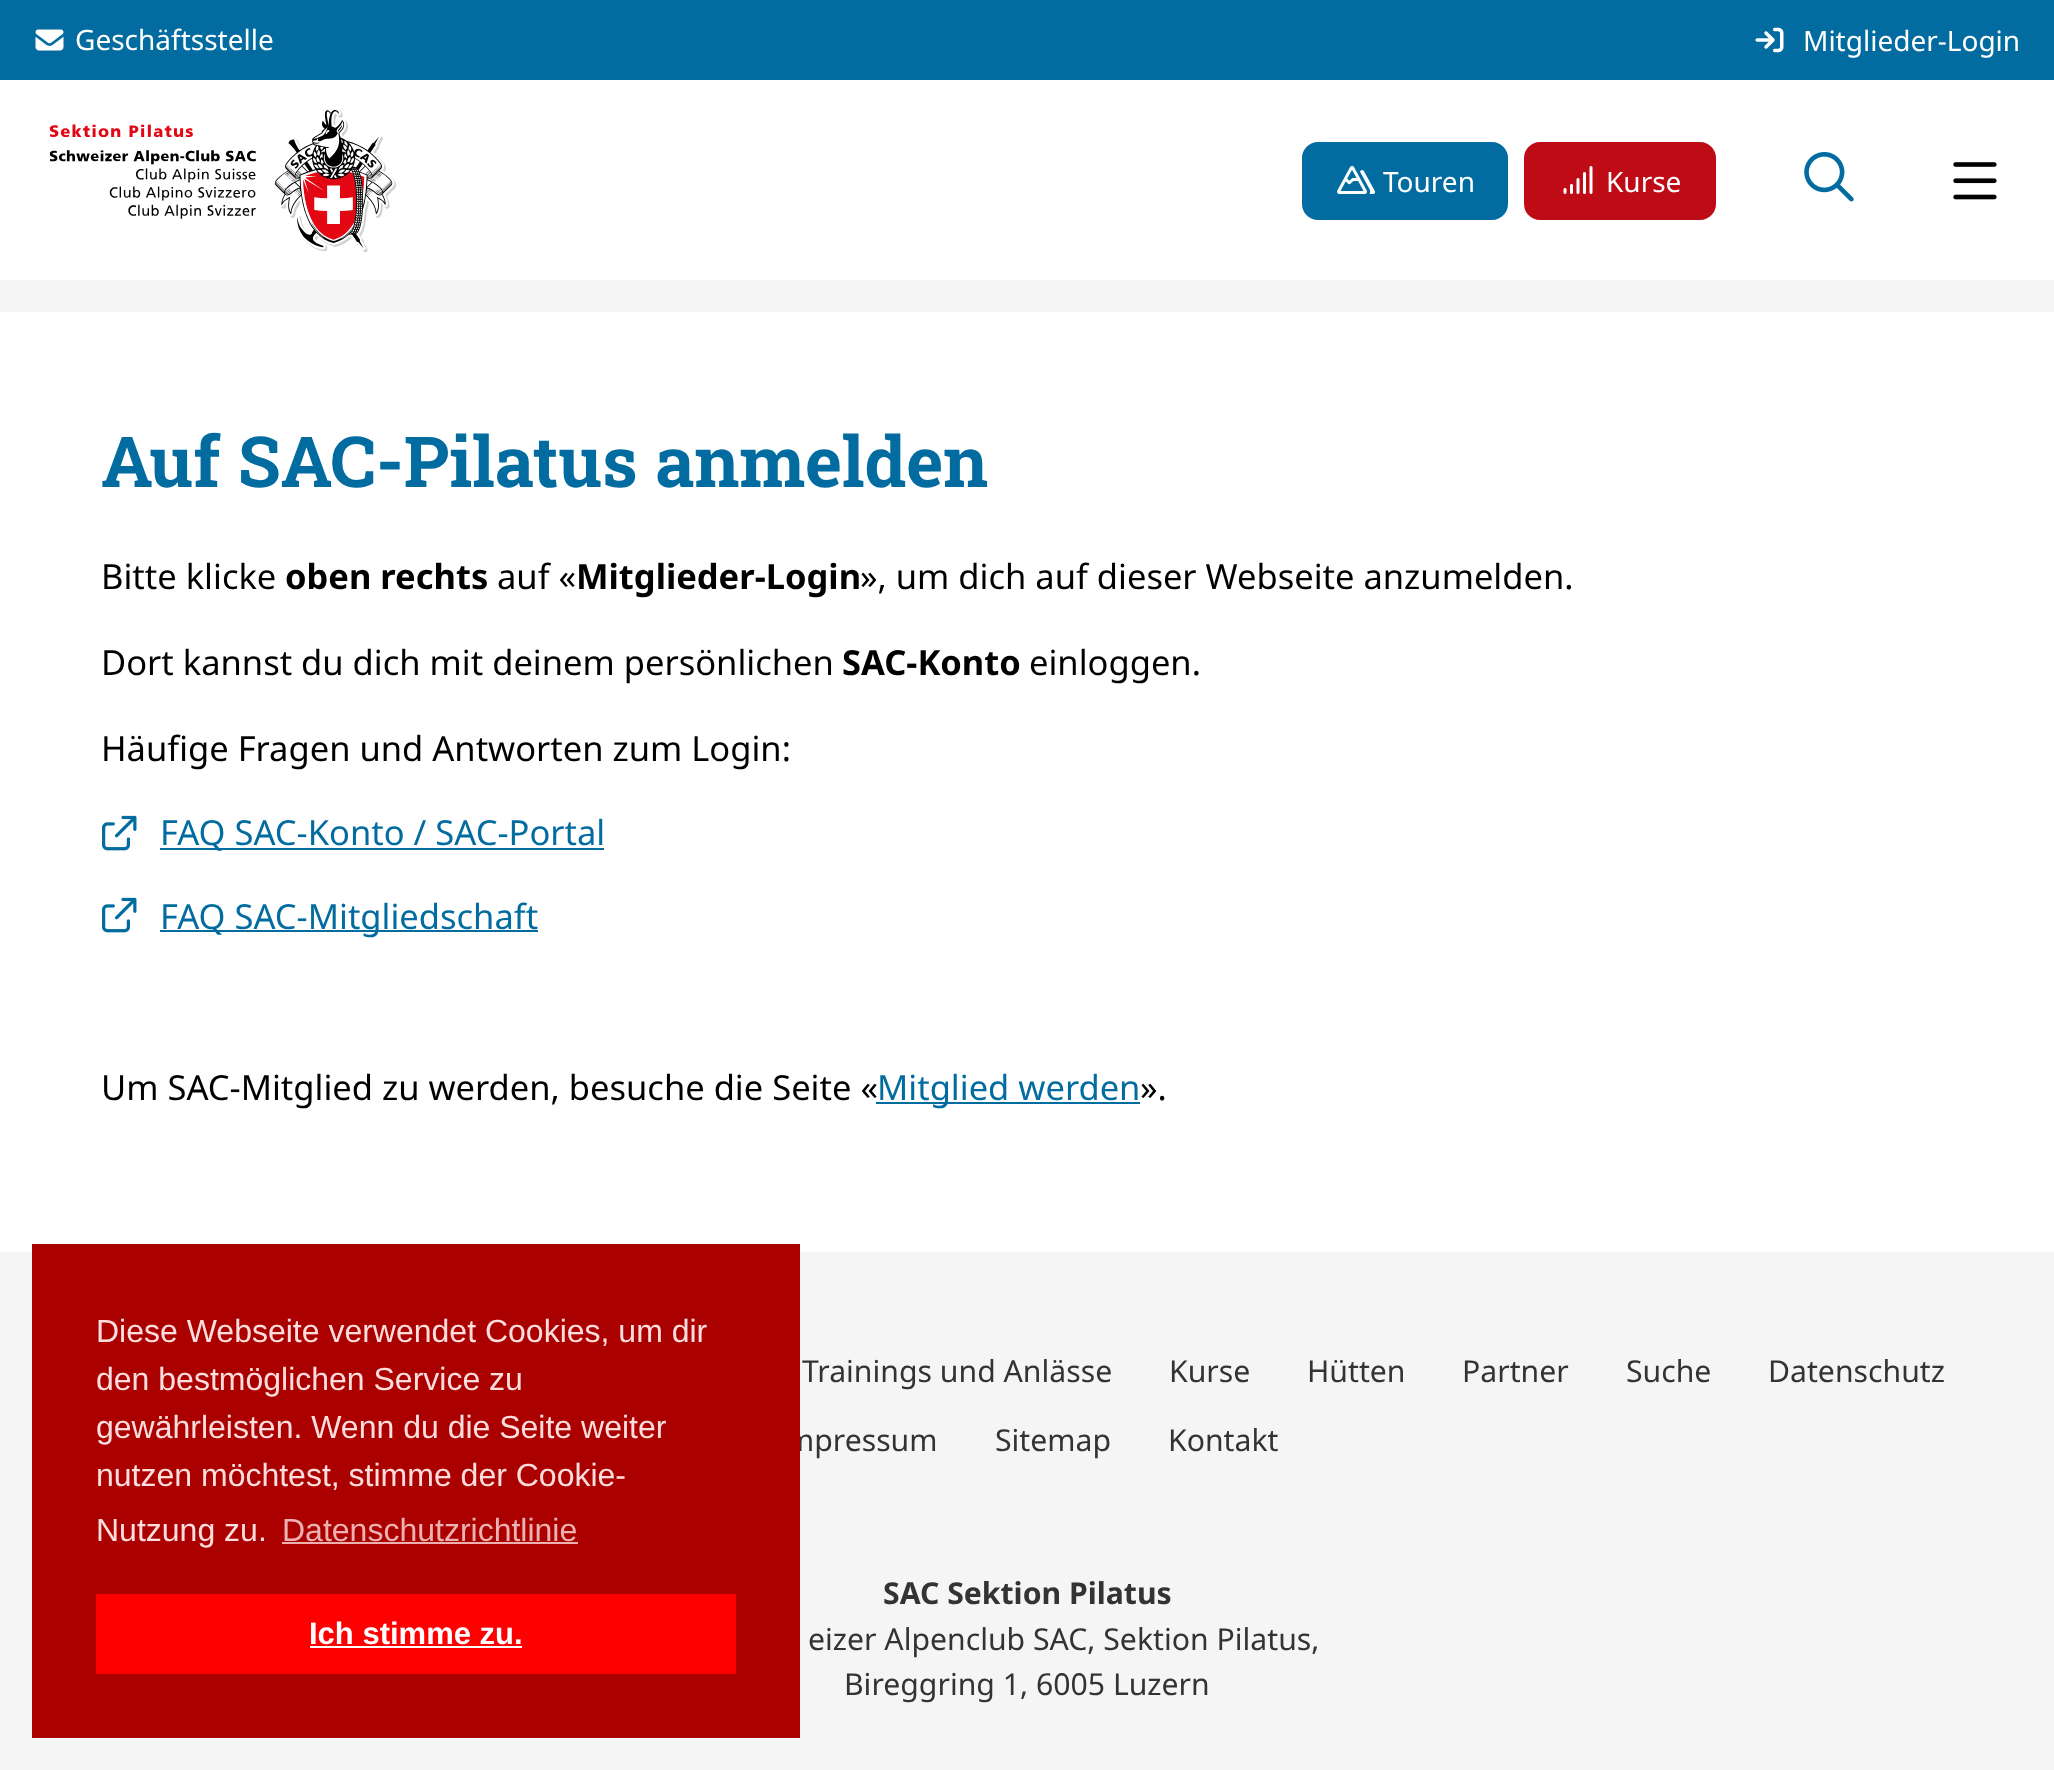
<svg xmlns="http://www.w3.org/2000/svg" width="2054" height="1770">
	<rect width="100%" height="100%" fill="#F5F5F5" />
	<rect x="0" y="80" width="2054" height="200" fill="#FFFFFF" />
	<rect x="0" y="0" width="2054" height="80" fill="#026CA0" />
	<image x="35" y="29" width="29" height="22" href="assets/img1.png" />
	<text x="75" y="50" font-family="Noto Sans" font-size="28" fill="#FFFFFF">Geschäftsstelle</text>
	<image x="1755" y="27" width="29" height="26" href="assets/img2.png" />
	<text x="1803" y="51" font-family="Noto Sans" font-size="28" fill="#FFFFFF">Mitglieder-Login</text>
	<image x="49" y="110" width="348" height="143" href="assets/img3.png" />
	<rect x="1303" y="143" width="204" height="76" rx="15" fill="#026CA0" stroke="#026CA0" stroke-width="2" />
	<image x="1337" y="166" width="39" height="28" href="assets/img4.png" />
	<text x="1383" y="192" font-family="Noto Sans" font-size="28" fill="#FFFFFF">Touren</text>
	<rect x="1525" y="143" width="190" height="76" rx="15" fill="#BE0B15" stroke="#BE0B15" stroke-width="2" />
	<image x="1563" y="166" width="30" height="28" href="assets/img5.png" />
	<text x="1606" y="192" font-family="Noto Sans" font-size="28" fill="#FFFFFF">Kurse</text>
	<image x="1804" y="152" width="50" height="50" href="assets/img6.png" />
	<image x="1953" y="162" width="44" height="38" href="assets/img7.png" />
	<rect x="0" y="312" width="2054" height="940" fill="#FFFFFF" />
	<text x="101" y="487" font-family="Roboto Slab" font-size="70.4" font-weight="700" fill="#026CA0">Auf SAC-Pilatus anmelden</text>
	<text x="101" y="589" font-family="Noto Sans" font-size="34.5" fill="#000000">Bitte klicke</text>
	<text x="285" y="589" font-family="Noto Sans" font-size="34.5" font-weight="700" fill="#000000">oben rechts</text>
	<text x="497" y="589" font-family="Noto Sans" font-size="34.5" fill="#000000">auf «</text>
	<text x="576" y="589" font-family="Noto Sans" font-size="34.5" font-weight="700" fill="#000000">Mitglieder-Login</text>
	<g font-family="Noto Sans" font-size="34.5" fill="#000000">
		<text x="860" y="589">», um dich auf dieser Webseite anzumelden.</text>
		<text x="101" y="675">Dort kannst du dich mit deinem persönlichen</text>
	</g>
	<text x="842" y="675" font-family="Noto Sans" font-size="34.5" font-weight="700" fill="#000000">SAC-Konto</text>
	<g font-family="Noto Sans" font-size="34.5" fill="#000000">
		<text x="1029" y="675">einloggen.</text>
		<text x="101" y="761">Häufige Fragen und Antworten zum Login:</text>
	</g>
	<image x="102" y="815" width="35" height="36" href="assets/img8.png" />
	<rect x="160" y="848" width="444" height="2" fill="#026CA0" />
	<text x="160" y="845" font-family="Noto Sans" font-size="34.5" fill="#026CA0">FAQ SAC-Konto / SAC-Portal</text>
	<image x="102" y="897" width="35" height="36" href="assets/img8.png" />
	<rect x="160" y="930" width="378" height="2" fill="#026CA0" />
	<text x="160" y="929" font-family="Noto Sans" font-size="34.5" fill="#026CA0">FAQ SAC-Mitgliedschaft</text>
	<text x="101" y="1100" font-family="Noto Sans" font-size="34.5" fill="#000000">Um SAC-Mitglied zu werden, besuche die Seite «</text>
	<rect x="876" y="1102" width="264" height="2" fill="#026CA0" />
	<text x="877" y="1100" font-family="Noto Sans" font-size="34.5" fill="#026CA0">Mitglied werden</text>
	<text x="1140" y="1100" font-family="Noto Sans" font-size="34.5" fill="#000000">».</text>
	<text x="786" y="1451" font-family="Noto Sans" font-size="30.2" fill="#333333">mpressum</text>
	<rect x="32" y="1244" width="768" height="494" fill="#AA0000" />
	<g font-family="Liberation Sans" font-size="32" fill="#FFDDDD">
		<text x="96" y="1342">Diese Webseite verwendet Cookies, um dir</text>
		<text x="96" y="1390">den bestmöglichen Service zu</text>
		<text x="96" y="1438">gewährleisten. Wenn du die Seite weiter</text>
		<text x="96" y="1486">nutzen möchtest, stimme der Cookie-</text>
		<text x="96" y="1541">Nutzung zu.</text>
	</g>
	<text x="282" y="1541" font-family="Liberation Sans" font-size="32" fill="#EEB1B1">Datenschutzrichtlinie</text>
	<rect x="282" y="1542" width="296" height="2" fill="#EEB1B1" />
	<rect x="96" y="1594" width="640" height="80" fill="#FF0000" />
	<text x="309" y="1644" font-family="Liberation Sans" font-size="31" font-weight="700" fill="#FFFFFF">Ich stimme zu.</text>
	<rect x="310" y="1646" width="212" height="2" fill="#FFFFFF" />
	<g font-family="Noto Sans" font-size="30.2" fill="#333333">
		<text x="802" y="1382">Trainings und Anlässe</text>
		<text x="1169" y="1382">Kurse</text>
		<text x="1307" y="1382">Hütten</text>
		<text x="1462" y="1382">Partner</text>
		<text x="1626" y="1382">Suche</text>
		<text x="1768" y="1382">Datenschutz</text>
		<text x="995" y="1451">Sitemap</text>
		<text x="1168" y="1451">Kontakt</text>
	</g>
	<text x="883" y="1604" font-family="Noto Sans" font-size="30.2" font-weight="700" fill="#333333">SAC Sektion Pilatus</text>
	<g font-family="Noto Sans" font-size="30.2" fill="#333333">
		<text x="808" y="1650">eizer Alpenclub SAC, Sektion Pilatus,</text>
		<text x="844" y="1695">Bireggring 1, 6005 Luzern</text>
	</g>
</svg>
